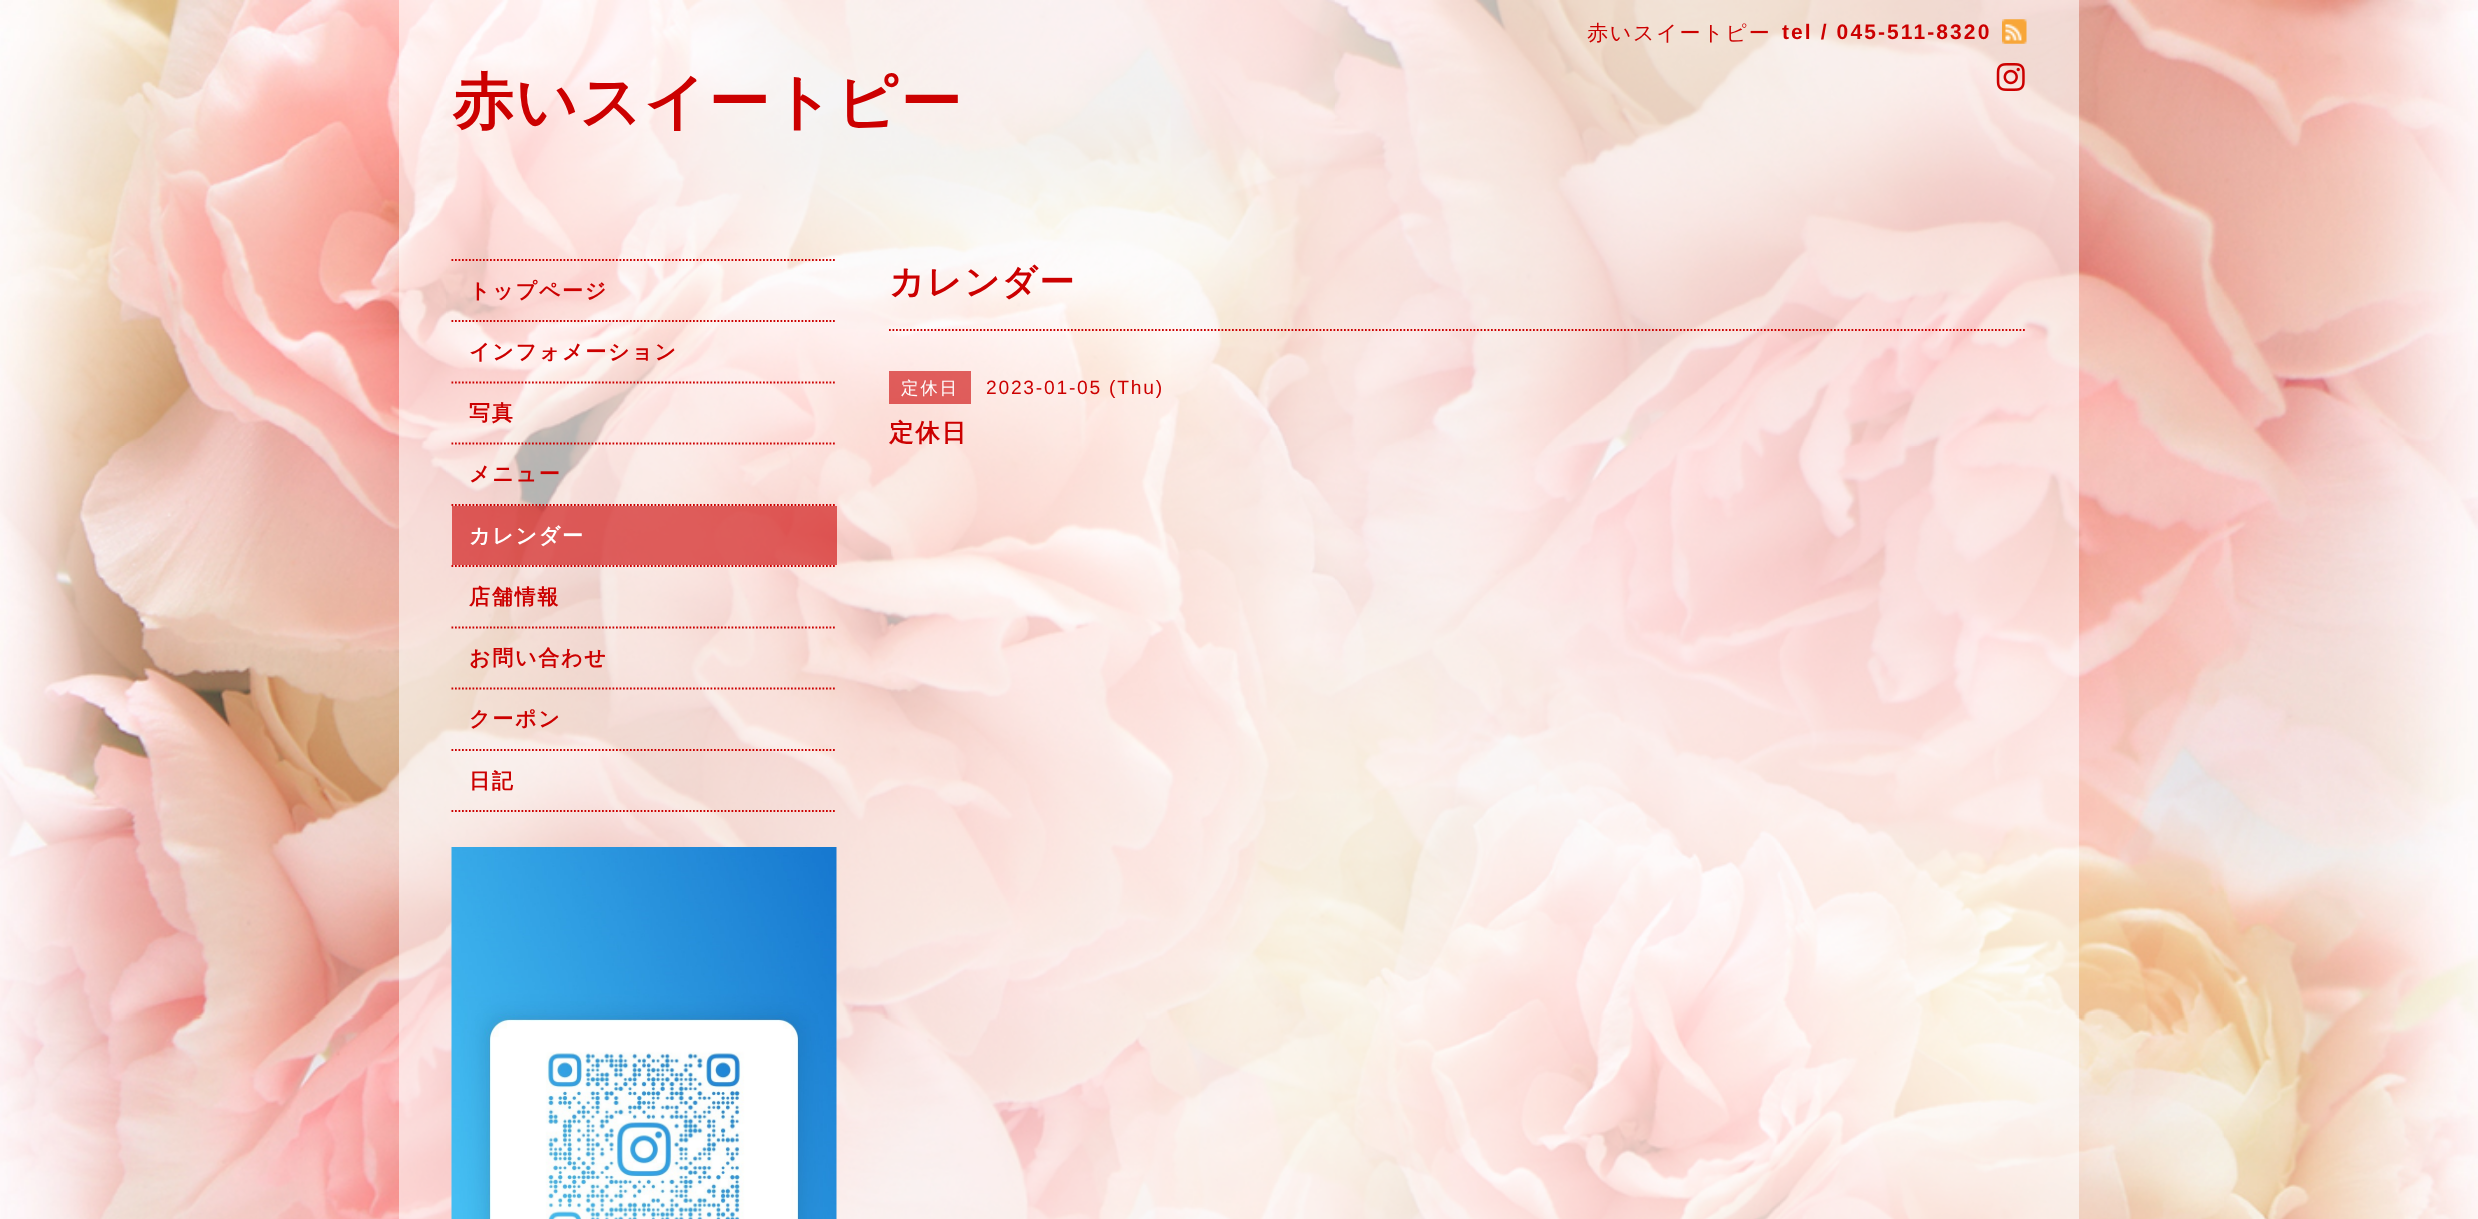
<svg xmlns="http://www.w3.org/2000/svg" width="2478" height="1219">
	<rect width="100%" height="100%" fill="#FFFFFF" />
	<image x="0" y="0" width="2478" height="1219" href="assets/img1.png" />
	<rect x="399" y="0" width="1680" height="1219" fill="#FFFFFF" fill-opacity="0.6" />
	<text x="1587" y="40" font-family="WenQuanYi Zen Hei" font-size="21" font-weight="500" letter-spacing="1.75" fill="#CC0000">赤いスイートピー</text>
	<text x="1782" y="39" font-family="Liberation Sans" font-size="21" font-weight="700" letter-spacing="2.1" fill="#CC0000">tel / 045-511-8320</text>
	<image x="2002" y="19" width="25" height="25" href="assets/img2.png" />
	<image x="1996" y="63" width="29" height="28" href="assets/img3.png" />
	<text x="452" y="123" font-family="WenQuanYi Zen Hei" font-size="61.25" font-weight="700" letter-spacing="1.75" fill="#CC0000">赤いスイートピー</text>
	<path d="M451.5 260H836.5" fill="none" stroke="#CC0000" stroke-width="1.8" stroke-dasharray="1.75 1.75" />
	<path d="M451.5 321H836.5" fill="none" stroke="#CC0000" stroke-width="1.8" stroke-dasharray="1.75 1.75" />
	<text x="469" y="298" font-family="WenQuanYi Zen Hei" font-size="21" font-weight="700" letter-spacing="1.75" fill="#CC0000">トップページ</text>
	<path d="M451.5 382.5H836.5" fill="none" stroke="#CC0000" stroke-width="1.8" stroke-dasharray="1.75 1.75" />
	<text x="469" y="359" font-family="WenQuanYi Zen Hei" font-size="21" font-weight="700" letter-spacing="1.75" fill="#CC0000">インフォメーション</text>
	<path d="M451.5 443.5H836.5" fill="none" stroke="#CC0000" stroke-width="1.8" stroke-dasharray="1.75 1.75" />
	<text x="469" y="420" font-family="WenQuanYi Zen Hei" font-size="21" font-weight="700" letter-spacing="1.75" fill="#CC0000">写真</text>
	<path d="M451.5 505H836.5" fill="none" stroke="#CC0000" stroke-width="1.8" stroke-dasharray="1.75 1.75" />
	<text x="469" y="481" font-family="WenQuanYi Zen Hei" font-size="21" font-weight="700" letter-spacing="1.75" fill="#CC0000">メニュー</text>
	<path d="M451.5 566H836.5" fill="none" stroke="#CC0000" stroke-width="1.8" stroke-dasharray="1.75 1.75" />
	<rect x="452" y="506" width="385" height="59" fill="#CC0000" fill-opacity="0.6" />
	<text x="469" y="543" font-family="WenQuanYi Zen Hei" font-size="21" font-weight="700" letter-spacing="1.75" fill="#FFFFFF">カレンダー</text>
	<path d="M451.5 627.5H836.5" fill="none" stroke="#CC0000" stroke-width="1.8" stroke-dasharray="1.75 1.75" />
	<text x="469" y="604" font-family="WenQuanYi Zen Hei" font-size="21" font-weight="700" letter-spacing="1.75" fill="#CC0000">店舗情報</text>
	<path d="M451.5 688.5H836.5" fill="none" stroke="#CC0000" stroke-width="1.8" stroke-dasharray="1.75 1.75" />
	<text x="469" y="665" font-family="WenQuanYi Zen Hei" font-size="21" font-weight="700" letter-spacing="1.75" fill="#CC0000">お問い合わせ</text>
	<path d="M451.5 750H836.5" fill="none" stroke="#CC0000" stroke-width="1.8" stroke-dasharray="1.75 1.75" />
	<text x="469" y="726" font-family="WenQuanYi Zen Hei" font-size="21" font-weight="700" letter-spacing="1.75" fill="#CC0000">クーポン</text>
	<path d="M451.5 811H836.5" fill="none" stroke="#CC0000" stroke-width="1.8" stroke-dasharray="1.75 1.75" />
	<text x="469" y="788" font-family="WenQuanYi Zen Hei" font-size="21" font-weight="700" letter-spacing="1.75" fill="#CC0000">日記</text>
	<image x="451" y="847" width="386" height="372" href="assets/img4.png" />
	<text x="889" y="294" font-family="WenQuanYi Zen Hei" font-size="35" font-weight="700" letter-spacing="1.75" fill="#CC0000">カレンダー</text>
	<path d="M889 330H2026.5" fill="none" stroke="#CC0000" stroke-width="1.8" stroke-dasharray="1.75 1.75" />
	<rect x="889" y="371" width="82" height="33" fill="#CC0000" fill-opacity="0.6" />
	<text x="901" y="394" font-family="WenQuanYi Zen Hei" font-size="17.5" font-weight="500" letter-spacing="1.75" fill="#FFFFFF">定休日</text>
	<text x="986" y="394" font-family="Liberation Sans" font-size="19.25" letter-spacing="1.75" fill="#CC0000">2023-01-05 (Thu)</text>
	<text x="889" y="441" font-family="WenQuanYi Zen Hei" font-size="24.5" font-weight="700" letter-spacing="1.75" fill="#CC0000">定休日</text>
</svg>
